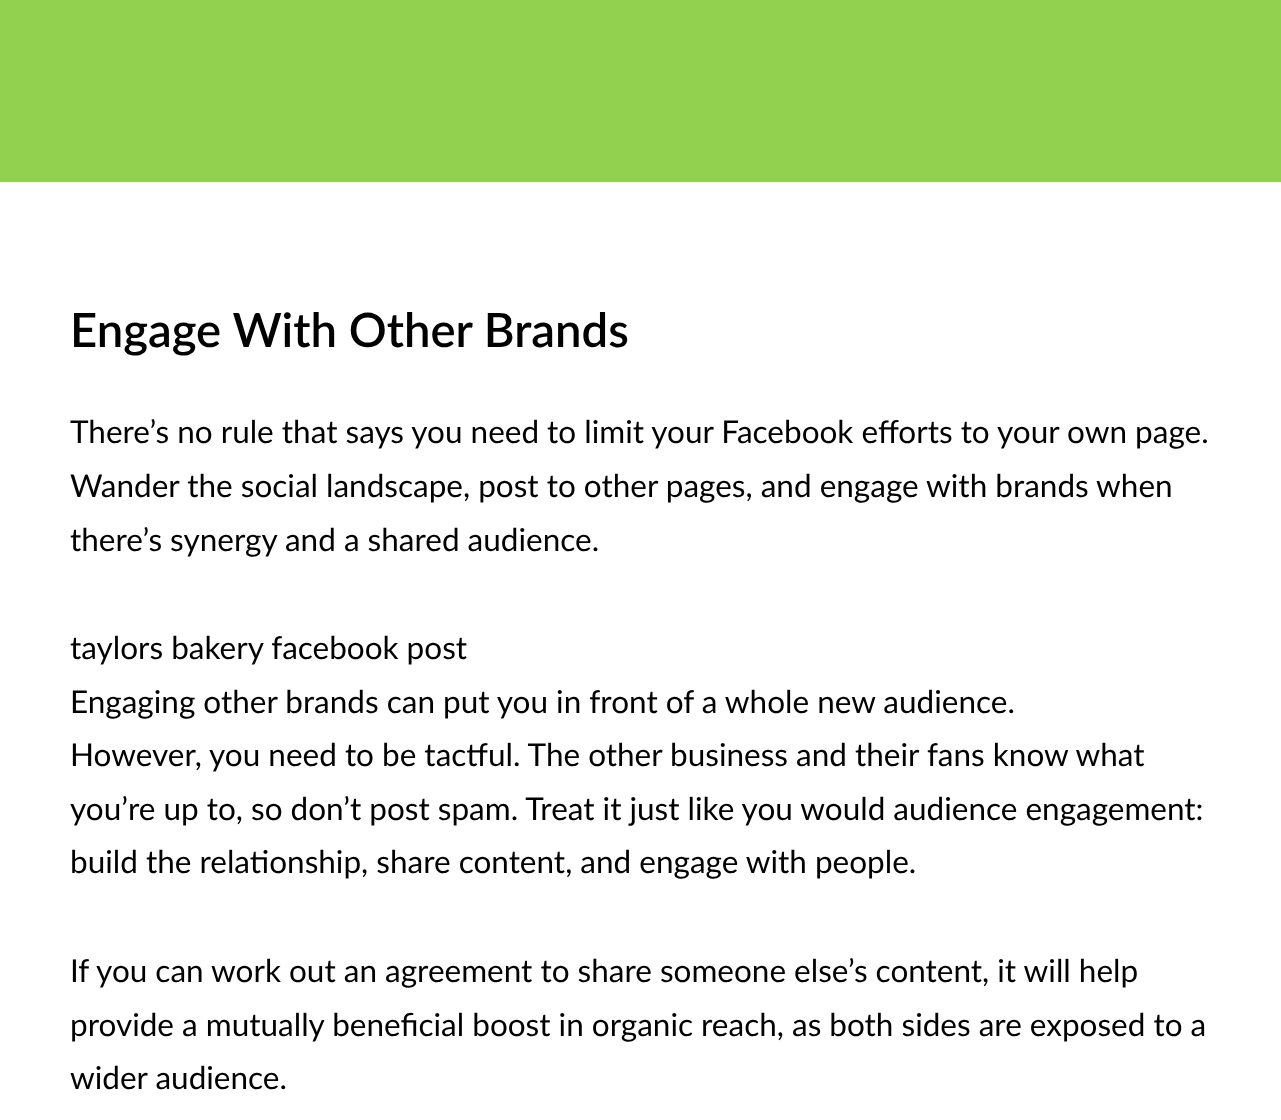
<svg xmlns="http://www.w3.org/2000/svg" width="1281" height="1120">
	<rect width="100%" height="100%" fill="#FFFFFF" />
	<rect x="0" y="0" width="1281" height="182" fill="#92D050" />
	<text x="70" y="347" font-family="Lato" font-size="47.25" font-weight="600" fill="#000000">Engage With Other Brands</text>
	<g font-family="Lato" font-size="31.5" fill="#000000">
		<text x="70" y="443">There’s no rule that says you need to limit your Facebook efforts to your own page.</text>
		<text x="70" y="497">Wander the social landscape, post to other pages, and engage with brands when</text>
		<text x="70" y="551">there’s synergy and a shared audience.</text>
		<text x="70" y="659">taylors bakery facebook post</text>
		<text x="70" y="713">Engaging other brands can put you in front of a whole new audience.</text>
		<text x="70" y="766">However, you need to be tactful. The other business and their fans know what</text>
		<text x="70" y="820">you’re up to, so don’t post spam. Treat it just like you would audience engagement:</text>
		<text x="70" y="873">build the relationship, share content, and engage with people.</text>
		<text x="70" y="982">If you can work out an agreement to share someone else’s content, it will help</text>
		<text x="70" y="1036">provide a mutually beneficial boost in organic reach, as both sides are exposed to a</text>
		<text x="70" y="1089">wider audience.</text>
	</g>
</svg>
